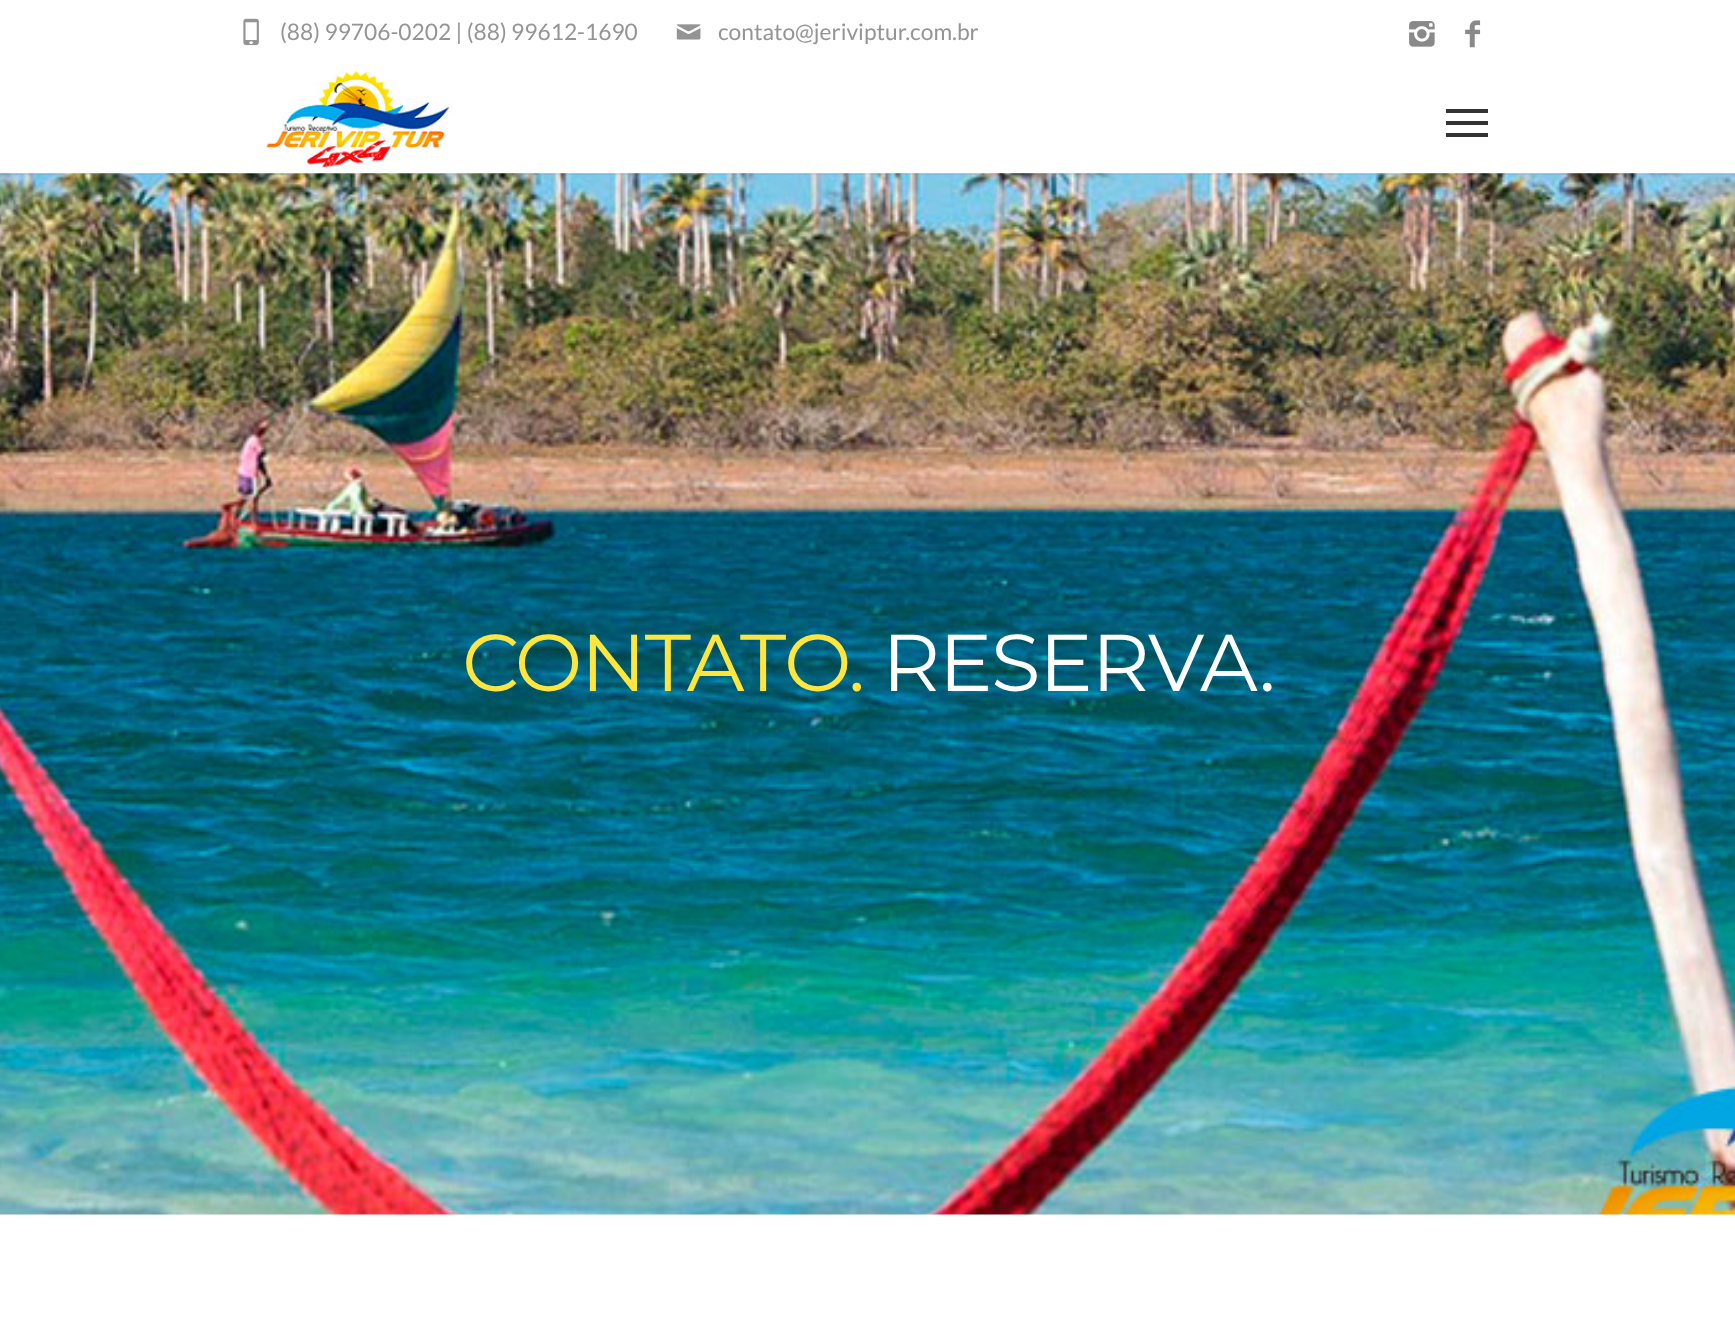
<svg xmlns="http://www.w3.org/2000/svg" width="1735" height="1322">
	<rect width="100%" height="100%" fill="#FFFFFF" />
	<image x="0" y="173" width="1735" height="1042" href="assets/img6.png" />
	<rect x="-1" y="-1" width="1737" height="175" fill="none" stroke="#000000" stroke-opacity="0.05" stroke-width="2" />
	<image x="243" y="18" width="16" height="28" href="assets/img1.png" />
	<text x="280" y="40" font-family="Lato" font-size="22.75" fill="#949494">(88) 99706-0202 | (88) 99612-1690</text>
	<image x="676" y="24" width="25" height="16" href="assets/img2.png" />
	<text x="718" y="40" font-family="Lato" font-size="22.75" fill="#949494">contato@jeriviptur.com.br</text>
	<image x="1409" y="21" width="26" height="26" href="assets/img3.png" />
	<image x="1465" y="20" width="16" height="28" href="assets/img4.png" />
	<image x="238" y="65" width="240" height="109" href="assets/img5.png" />
	<rect x="1446" y="109" width="42" height="4" fill="#333333" />
	<rect x="1446" y="121" width="42" height="4" fill="#333333" />
	<rect x="1446" y="133" width="42" height="4" fill="#333333" />
	<text x="462" y="691" font-family="Montserrat" font-size="80.5" letter-spacing="-1.5" fill="#FFE63E">CONTATO.</text>
	<text x="882" y="691" font-family="Montserrat" font-size="80.5" letter-spacing="-1.5" fill="#FFFFFF">RESERVA.</text>
</svg>
